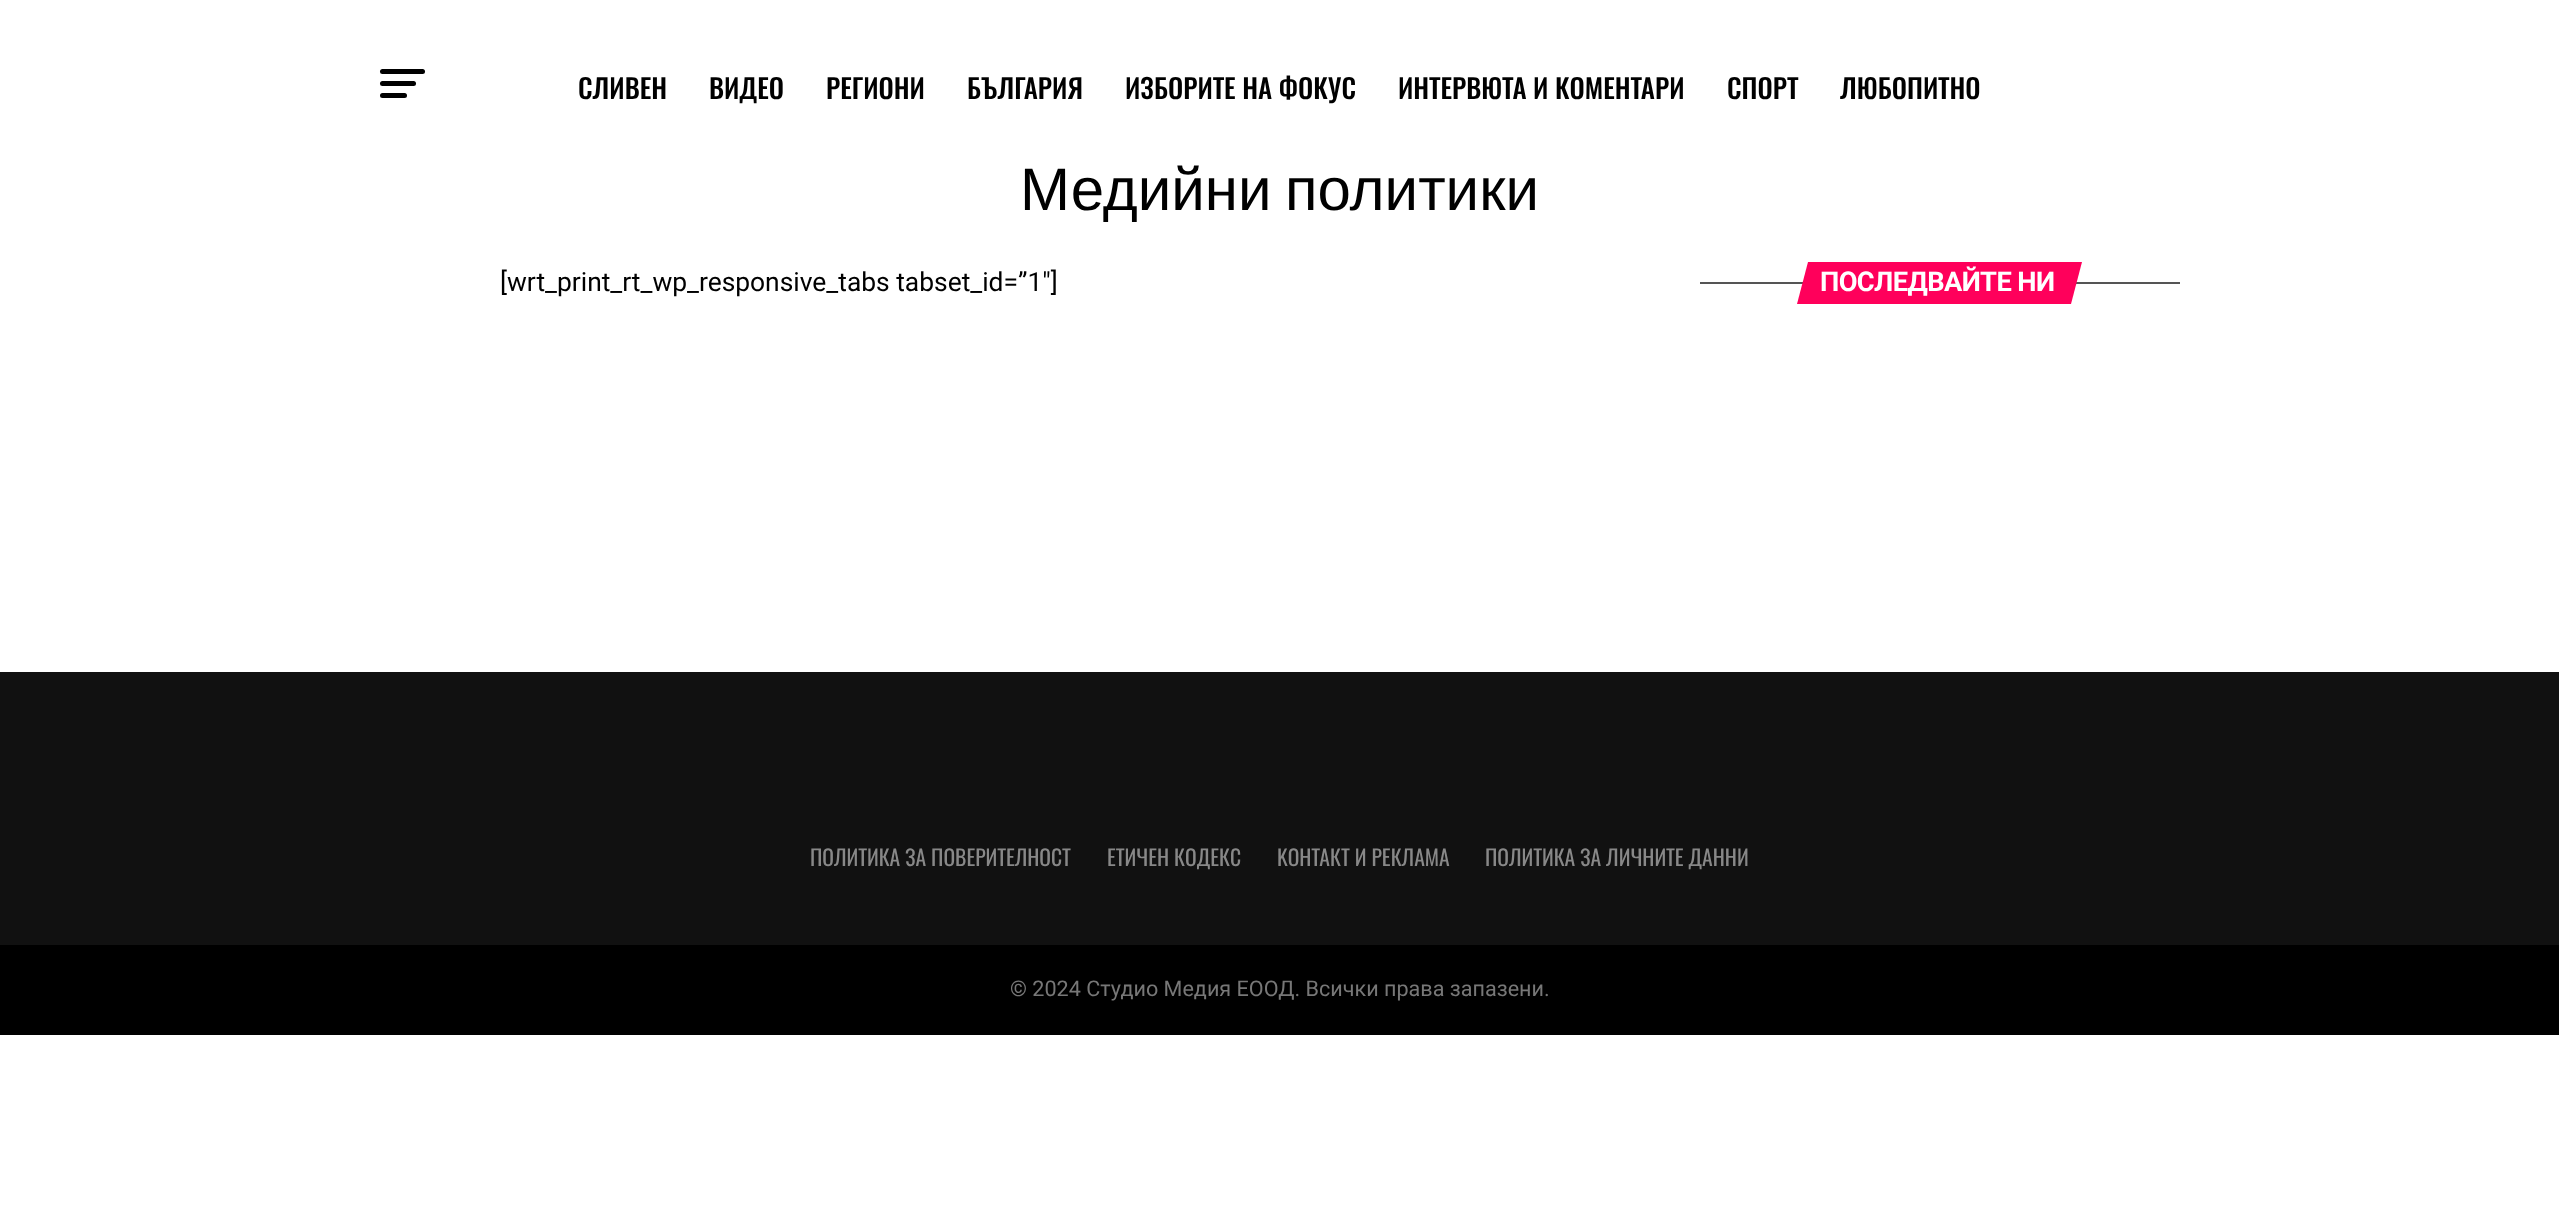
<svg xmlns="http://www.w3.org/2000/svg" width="2559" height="1215">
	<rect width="100%" height="100%" fill="#FFFFFF" />
	<rect x="380" y="69" width="45" height="5" rx="2.5" fill="#000000" />
	<rect x="380" y="81" width="36" height="5" rx="2.5" fill="#000000" />
	<rect x="380" y="93" width="27" height="5" rx="2.5" fill="#000000" />
	<g font-family="Oswald" font-size="27" font-weight="500" fill="#000000">
		<text x="578" y="99">СЛИВЕН</text>
		<text x="709" y="99">ВИДЕО</text>
		<text x="826" y="99">РЕГИОНИ</text>
		<text x="967" y="99">БЪЛГАРИЯ</text>
		<text x="1125" y="99">ИЗБОРИТЕ НА ФОКУС</text>
		<text x="1398" y="99">ИНТЕРВЮТА И КОМЕНТАРИ</text>
		<text x="1727" y="99">СПОРТ</text>
		<text x="1840" y="99">ЛЮБОПИТНО</text>
	</g>
	<text x="1020" y="210" word-spacing="-3" font-family="Liberation Sans" font-size="60" fill="#000000">Медийни политики</text>
	<text x="500" y="291" font-family="Roboto" font-size="26.4" fill="#000000">[wrt_print_rt_wp_responsive_tabs tabset_id=”1″]</text>
	<rect x="1700" y="282" width="480" height="2" fill="#555555" />
	<path d="M1808 262H2082L2071 304H1797Z" fill="#FF005B" />
	<text x="1820" y="291" font-family="Roboto" font-size="27.25" font-weight="700" letter-spacing="-0.6" fill="#FFFFFF">ПОСЛЕДВАЙТЕ НИ</text>
	<rect x="0" y="672" width="2559" height="273" fill="#111111" />
	<g font-family="Oswald" font-size="21.6" fill="#888888">
		<text x="810" y="866">ПОЛИТИКА ЗА ПОВЕРИТЕЛНОСТ</text>
		<text x="1107" y="866">ЕТИЧЕН КОДЕКС</text>
		<text x="1277" y="866">KОНТАКТ И РЕКЛАМА</text>
		<text x="1485" y="866">ПОЛИТИКА ЗА ЛИЧНИТЕ ДАННИ</text>
	</g>
	<rect x="0" y="945" width="2559" height="90" fill="#000000" />
	<text x="1010" y="996" font-family="Roboto" font-size="21.6" fill="#777777">© 2024 Студио Медия ЕООД. Всички права запазени.</text>
</svg>
